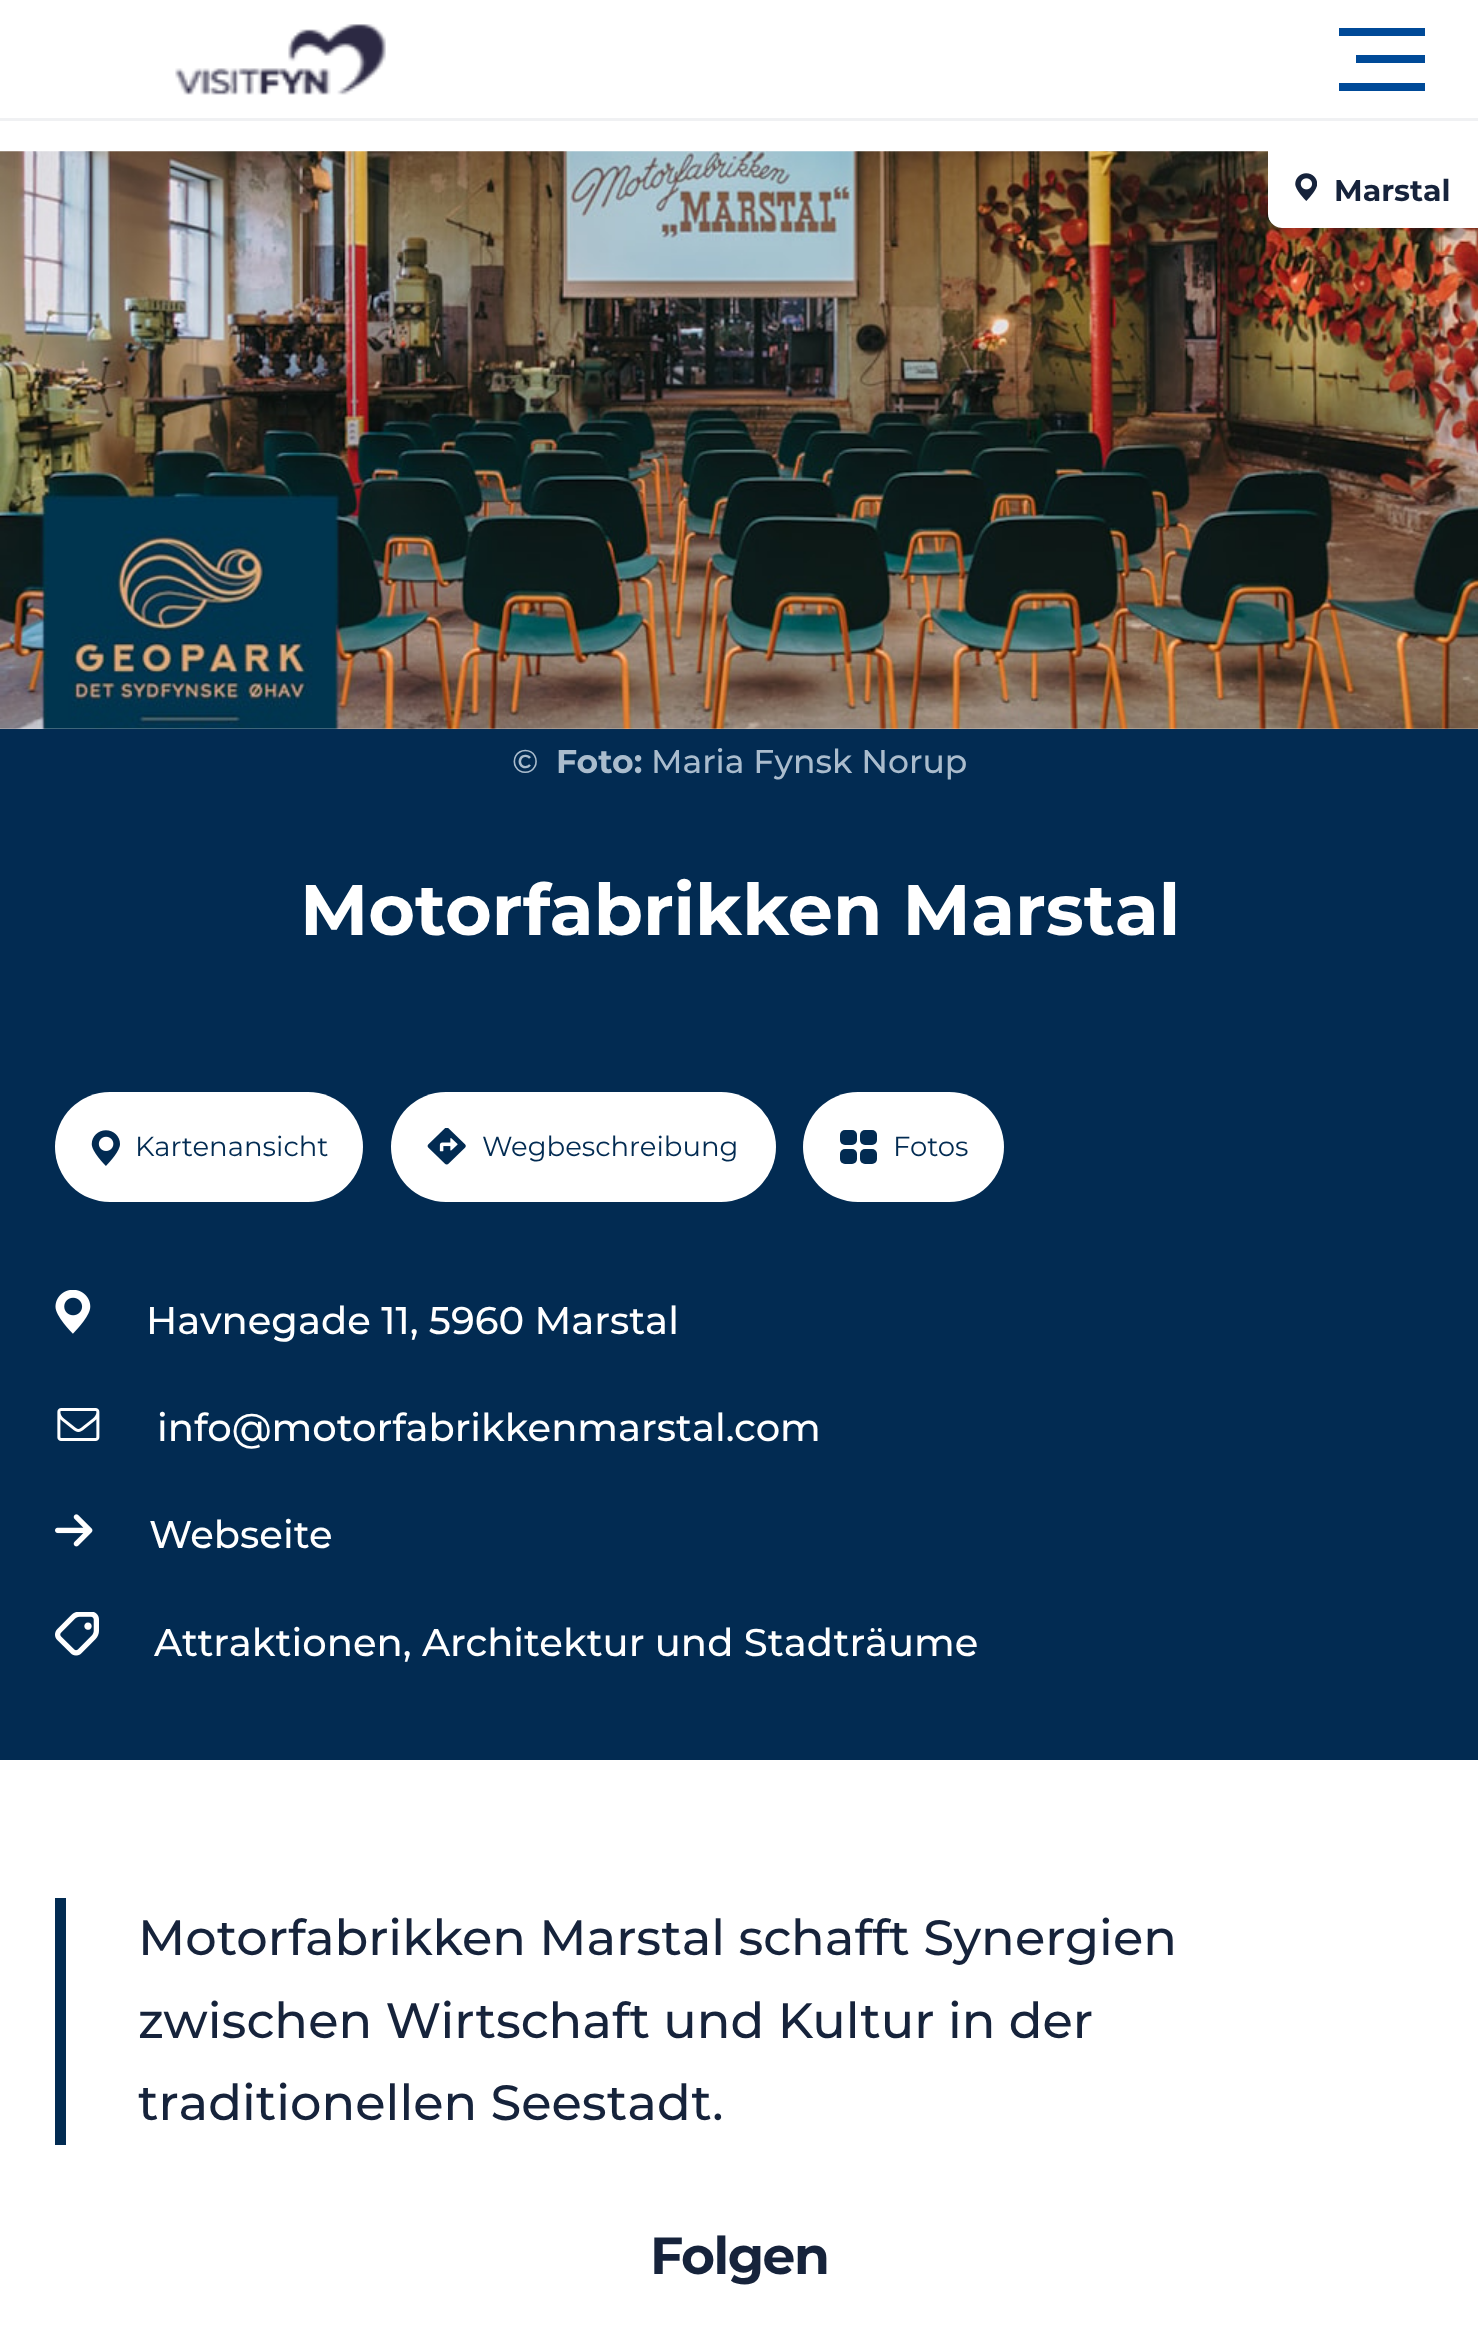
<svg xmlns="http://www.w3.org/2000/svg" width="1478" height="2335">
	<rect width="100%" height="100%" fill="#FFFFFF" />
	<rect x="0" y="118" width="1478" height="3" fill="#F0F1F3" />
	<image x="175" y="24" width="211" height="71" href="assets/img1.png" />
	<rect x="1339" y="28" width="86" height="8" fill="#004A98" />
	<rect x="1356" y="55" width="69" height="8" fill="#004A98" />
	<rect x="1339" y="83" width="86" height="8" fill="#004A98" />
	<image x="0" y="151" width="1478" height="578" href="assets/img2.png" />
	<path d="M1268 151H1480V228H1282C1274.5 228 1268 221.5 1268 214Z" fill="#FFFFFF" />
	<image x="1295" y="173" width="22" height="28" href="assets/img3.png" />
	<text x="1334" y="201" font-family="Montserrat" font-size="30" font-weight="700" fill="#16233B">Marstal</text>
	<rect x="0" y="729" width="1478" height="1031" fill="#022B52" />
	<text x="512" y="773" font-family="Montserrat" font-size="33" font-weight="500" fill="#AABCCD">©</text>
	<text x="556" y="773" font-family="Montserrat" font-size="33" font-weight="700" fill="#AABCCD">Foto:</text>
	<text x="651" y="773" font-family="Montserrat" font-size="33" font-weight="500" fill="#AABCCD">Maria Fynsk Norup</text>
	<text x="300" y="935" font-family="Montserrat" font-size="71.5" font-weight="700" fill="#FFFFFF">Motorfabrikken Marstal</text>
	<rect x="55" y="1092" width="308" height="110" rx="55" fill="#FFFFFF" />
	<image x="91" y="1130" width="29" height="36" href="assets/img4.png" />
	<text x="135" y="1156" font-family="Montserrat" font-size="27.5" fill="#022B52">Kartenansicht</text>
	<rect x="391" y="1092" width="385" height="110" rx="55" fill="#FFFFFF" />
	<image x="427" y="1128" width="39" height="37" href="assets/img5.png" />
	<text x="482" y="1156" font-family="Montserrat" font-size="27.5" fill="#022B52">Wegbeschreibung</text>
	<rect x="803" y="1092" width="201" height="110" rx="55" fill="#FFFFFF" />
	<rect x="860" y="1130" width="17" height="15" rx="5" fill="#022B52" />
	<rect x="860" y="1149" width="17" height="15" rx="5" fill="#022B52" />
	<rect x="840" y="1130" width="17" height="15" rx="5" fill="#022B52" />
	<rect x="840" y="1149" width="17" height="15" rx="5" fill="#022B52" />
	<text x="893" y="1156" font-family="Montserrat" font-size="27.5" fill="#022B52">Fotos</text>
	<image x="55" y="1290" width="36" height="44" href="assets/img6.png" />
	<text x="146" y="1334" font-family="Montserrat" font-size="38.5" font-weight="500" fill="#FFFFFF">Havnegade 11, 5960 Marstal</text>
	<image x="57" y="1408" width="43" height="33" href="assets/img7.png" />
	<text x="157" y="1441" font-family="Montserrat" font-size="38.5" font-weight="500" fill="#FFFFFF">info@motorfabrikkenmarstal.com</text>
	<image x="55" y="1514" width="38" height="33" href="assets/img8.png" />
	<text x="149" y="1548" font-family="Montserrat" font-size="38.5" font-weight="500" fill="#FFFFFF">Webseite</text>
	<image x="55" y="1612" width="44" height="44" href="assets/img9.png" />
	<text x="154" y="1656" font-family="Montserrat" font-size="38.5" font-weight="500" fill="#FFFFFF">Attraktionen, Architektur und Stadträume</text>
	<rect x="55" y="1898" width="11" height="247" fill="#022B52" />
	<g font-family="Montserrat" font-size="49.5" font-weight="500" fill="#16233B">
		<text x="138" y="1955">Motorfabrikken Marstal schafft Synergien</text>
		<text x="138" y="2038">zwischen Wirtschaft und Kultur in der</text>
		<text x="138" y="2120">traditionellen Seestadt.</text>
	</g>
	<text x="650" y="2274" font-family="Montserrat" font-size="52" font-weight="700" letter-spacing="-1.5" fill="#16233B">Folgen</text>
</svg>
